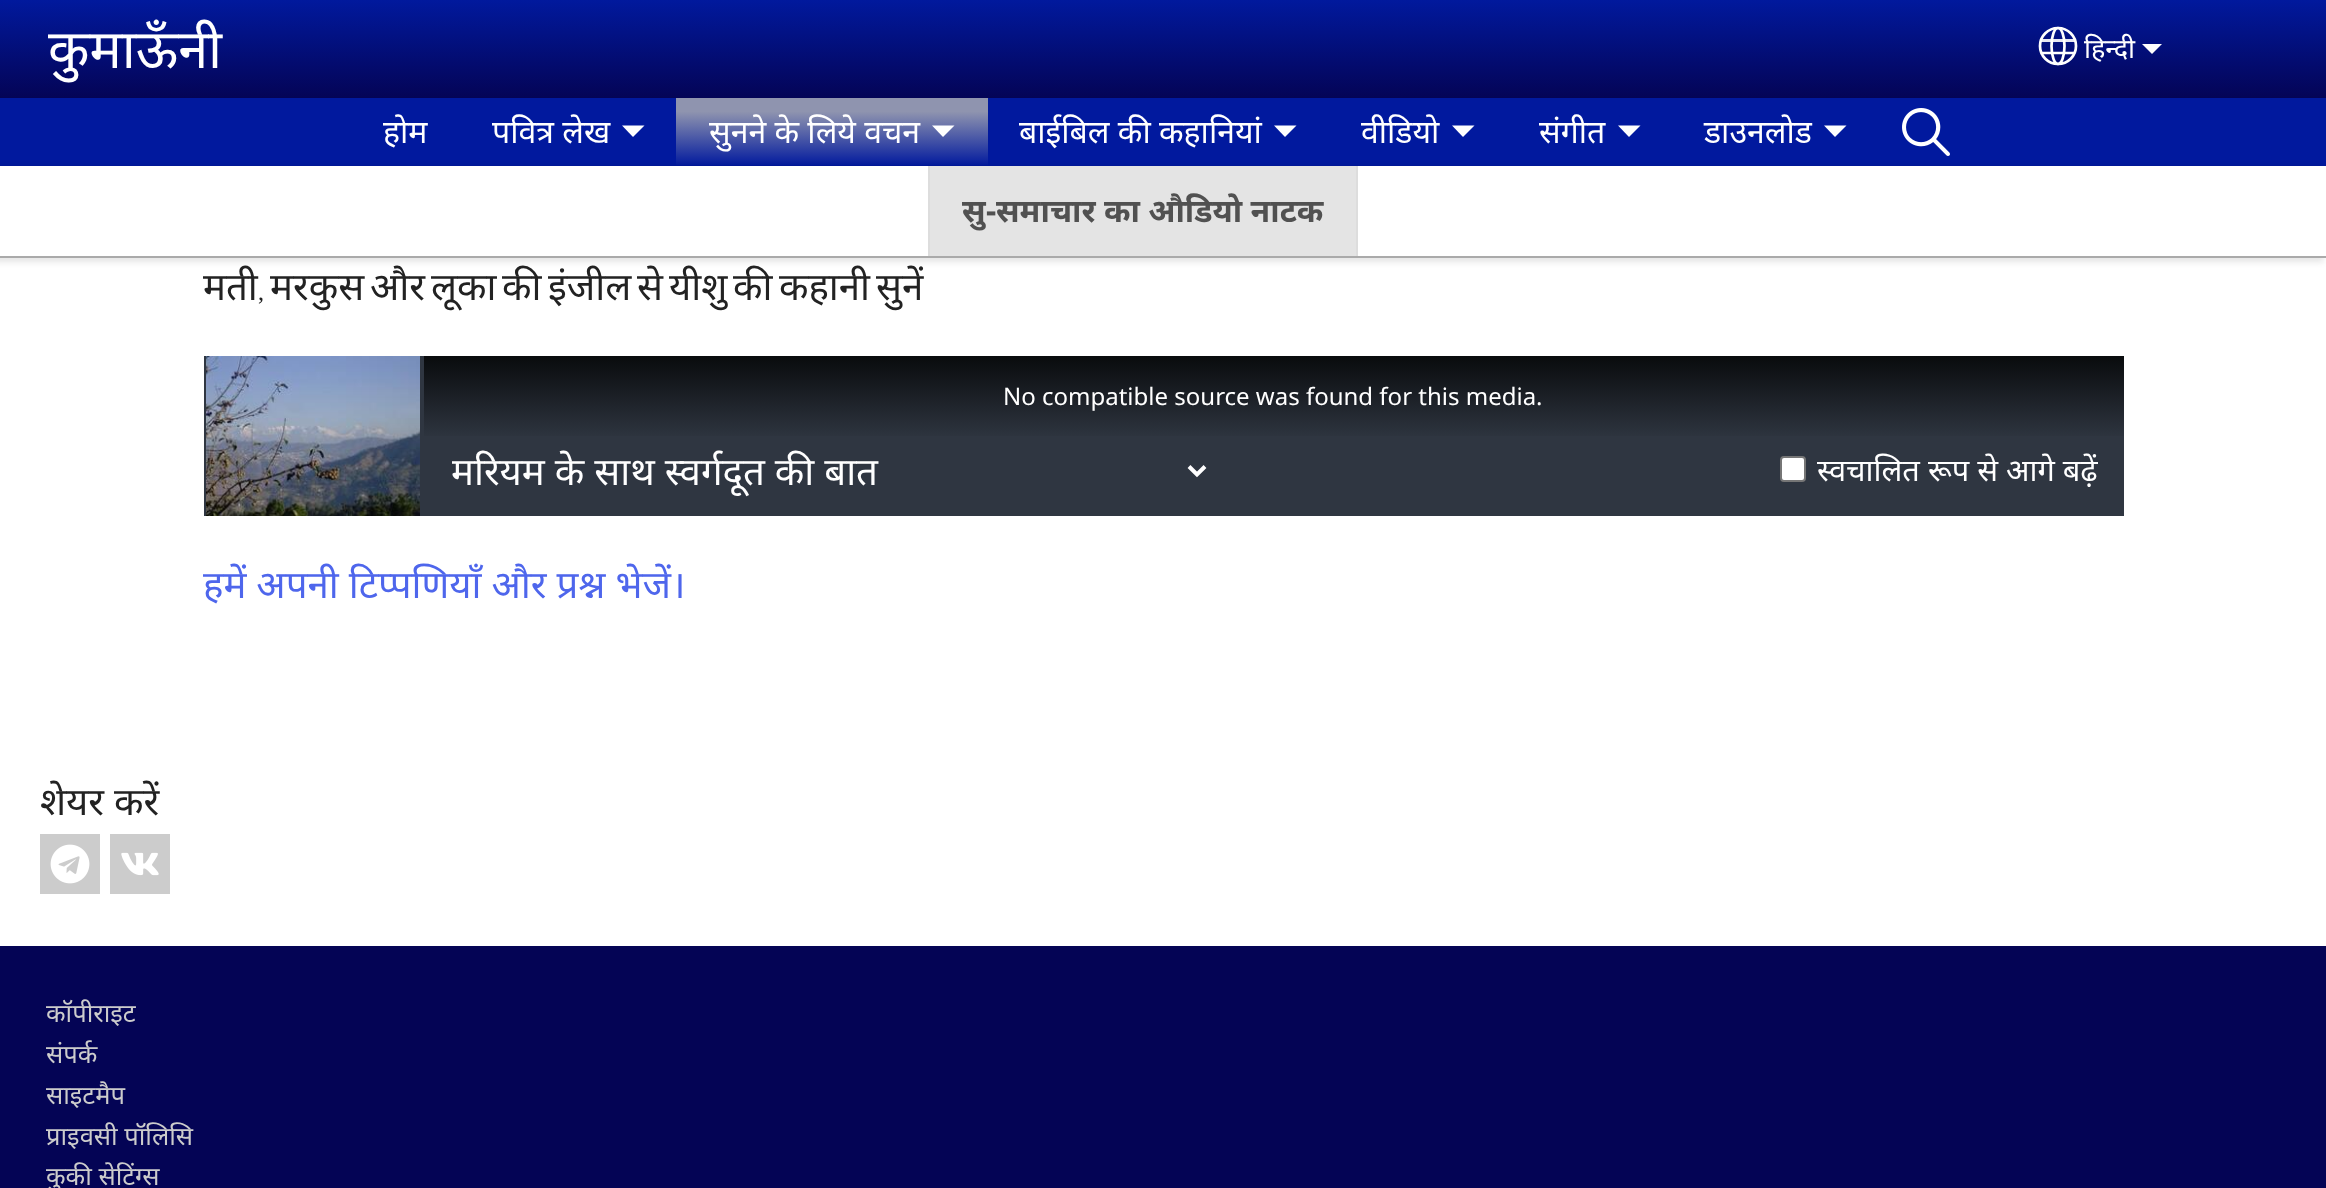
<svg xmlns="http://www.w3.org/2000/svg" width="2326" height="1188">
	<defs>
		<linearGradient id="g1" gradientUnits="userSpaceOnUse" x1="1163" y1="0" x2="1163" y2="98"><stop offset="0" stop-color="#01199D" /><stop offset="1" stop-color="#040456" /></linearGradient>
		<linearGradient id="g2" gradientUnits="userSpaceOnUse" x1="832" y1="98" x2="832" y2="166"><stop offset="0.2" stop-color="#8F94AF" /><stop offset="1" stop-color="#01199E" /></linearGradient>
		<linearGradient id="g3" gradientUnits="userSpaceOnUse" x1="1274" y1="356" x2="1274" y2="440"><stop offset="0" stop-color="#090B0D" /><stop offset="1" stop-color="#2F3641" /></linearGradient>
		<clipPath id="clip1"><rect x="452" y="442" width="730" height="58" /></clipPath>
	</defs>
	<rect width="100%" height="100%" fill="#FFFFFF" />
	<rect x="0" y="0" width="2326" height="98" fill="url(#g1)" />
	<text x="48" y="68" font-family="Noto Sans Devanagari" font-size="54" fill="#FFFFFF">कुमाऊँनी</text>
	<circle cx="2058" cy="46" r="18" fill="none" stroke="#FFFFFE" stroke-width="2.7" />
	<ellipse cx="2058" cy="46" rx="6.5" ry="18" fill="none" stroke="#FFFFFE" stroke-width="2.7" />
	<rect x="2041" y="39" width="34" height="3" fill="#FFFFFE" fill-opacity="0.9" />
	<path d="M2040.5 53H2075" fill="none" stroke="#FFFFFE" stroke-width="2.7" />
	<text x="2084" y="58" font-family="Noto Sans Devanagari" font-size="27" fill="#FFFFFF">हिन्‍दी</text>
	<path d="M2142 44H2162L2152 54Z" fill="#FFFFFE" />
	<rect x="0" y="98" width="2326" height="68" fill="#01199E" />
	<g font-family="Noto Sans Devanagari" font-size="32" fill="#FFFFFF">
		<text x="383" y="143">होम</text>
		<text x="492" y="143">पवित्र लेख</text>
	</g>
	<path d="M622 125.5H644.5L633 137Z" fill="#FEFFFF" />
	<rect x="676" y="98" width="312" height="67" fill="url(#g2)" />
	<text x="709" y="143" font-family="Noto Sans Devanagari" font-size="32" fill="#FFFFFF">सुनने के लिये वचन</text>
	<path d="M932 125.5H954.5L943 137Z" fill="#FEFFFF" />
	<rect x="-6" y="166" width="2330" height="96" fill="#000000" fill-opacity="0.1" filter="blur(3px)" />
	<rect x="0" y="166" width="2326" height="90" fill="#FFFFFF" />
	<rect x="0" y="256" width="2326" height="2" fill="#AAAAAA" />
	<rect x="930" y="166" width="426" height="90" fill="#E4E4E4" />
	<rect x="1356" y="166" width="2" height="90" fill="#DDDDDD" />
	<rect x="928" y="166" width="2" height="90" fill="#DDDDDD" />
	<text x="962" y="222" font-family="Noto Sans Devanagari" font-size="32" font-weight="700" fill="#515151">सु</text>
	<text x="986" y="222" font-family="Noto Sans" font-size="32" font-weight="700" fill="#515151">-</text>
	<text x="996" y="222" font-family="Noto Sans Devanagari" font-size="32" font-weight="700" fill="#515151">समाचार का औडियो नाटक</text>
	<image x="1902" y="108" width="48" height="48" href="assets/img1.png" />
	<text x="1019" y="143" font-family="Noto Sans Devanagari" font-size="32" fill="#FFFFFF">बाईबिल की कहानियां</text>
	<path d="M1274 125.5H1296.5L1285 137Z" fill="#FEFFFF" />
	<text x="1361" y="143" font-family="Noto Sans Devanagari" font-size="32" fill="#FFFFFF">वीडियो</text>
	<path d="M1452 125.5H1474.5L1463 137Z" fill="#FEFFFF" />
	<text x="1539" y="143" font-family="Noto Sans Devanagari" font-size="32" fill="#FFFFFF">संगीत</text>
	<path d="M1618 125.5H1640.5L1629 137Z" fill="#FEFFFF" />
	<text x="1704" y="143" font-family="Noto Sans Devanagari" font-size="32" fill="#FFFFFF">डाउनलोड</text>
	<path d="M1824 125.5H1846.5L1835 137Z" fill="#FEFFFF" />
	<text x="203" y="300" font-family="Noto Sans Devanagari" font-size="38.4" fill="#222222">मती</text>
	<text x="258" y="300" font-family="Liberation Serif" font-size="24" fill="#222222">,</text>
	<g font-family="Noto Sans Devanagari" font-size="38.4" fill="#222222">
		<text x="270" y="300">मरकुस</text>
		<text x="370" y="300">और</text>
		<text x="431" y="300">लूका</text>
		<text x="502" y="300">की</text>
		<text x="548" y="300">इंजील</text>
		<text x="637" y="300">से</text>
		<text x="669" y="300">यीशु</text>
		<text x="733" y="300">की</text>
		<text x="779" y="300">कहानी</text>
		<text x="876" y="300">सुनें</text>
	</g>
	<rect x="204" y="356" width="1920" height="160" fill="#2F3641" />
	<image x="206" y="356" width="214" height="160" href="assets/img2.png" />
	<rect x="424" y="356" width="1700" height="80" fill="url(#g3)" />
	<text x="1003" y="405" font-family="Noto Sans" font-size="24" fill="#FFFFFF">No compatible source was found for this media.</text>
	<path d="M1189 466.5L1197 474.5L1205 466.5" fill="none" stroke="#FFFFFF" stroke-width="4" />
	<g clip-path="url(#clip1)">
		<text x="451" y="485" font-family="Noto Sans Devanagari" font-size="38.4" fill="#FFFFFF">मरियम के साथ स्‍वर्गदूत की बात</text>
	</g>
	<rect x="1781" y="457" width="24" height="24" rx="3" fill="#FFFFFF" stroke="#767676" stroke-width="2" />
	<text x="1817" y="481" font-family="Noto Sans Devanagari" font-size="30.75" fill="#FFFFFF">स्वचालित रूप से आगे बढ़ें</text>
	<text x="203" y="598" font-family="Noto Sans Devanagari" font-size="38.4" fill="#4E66EC">हमें अपनी टिप्पणियाँ और प्रश्न भेजें।</text>
	<text x="40" y="815" font-family="Noto Sans Devanagari" font-size="38.4" fill="#222222">शेयर करें</text>
	<rect x="40" y="834" width="60" height="60" fill="#CCCCCC" />
	<image x="50" y="844" width="40" height="40" href="assets/img3.png" />
	<rect x="110" y="834" width="60" height="60" fill="#CCCCCC" />
	<image x="121" y="852" width="38" height="24" href="assets/img4.png" />
	<rect x="0" y="946" width="2326" height="242" fill="#040455" />
	<g font-family="Noto Sans Devanagari" font-size="25.5" fill="#CCCCCC">
		<text x="46" y="1022">कॉपीराइट</text>
		<text x="46" y="1063">संपर्क</text>
		<text x="46" y="1104">साइटमैप</text>
		<text x="46" y="1145">प्राइवसी पॉलिसि</text>
		<text x="46" y="1185">कुकी सेटिंग्स</text>
	</g>
</svg>
